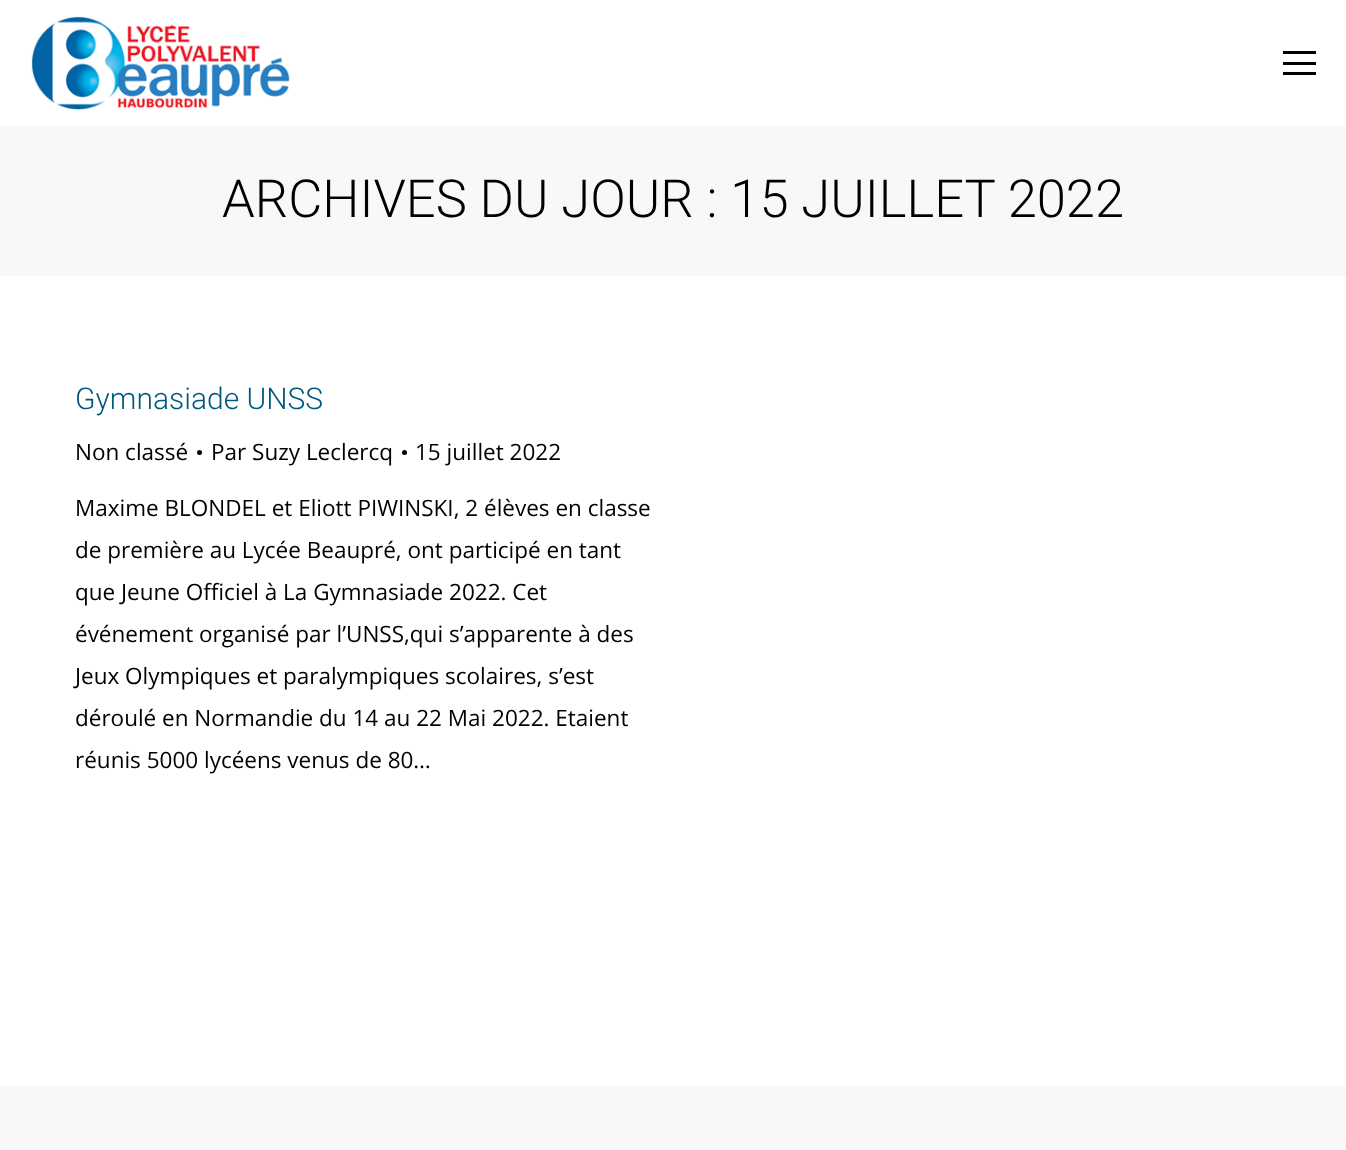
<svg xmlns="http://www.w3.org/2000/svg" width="1346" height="1150">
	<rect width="100%" height="100%" fill="#F8F8F9" />
	<rect x="0" y="0" width="1346" height="1086" fill="#FFFFFF" />
	<image x="31" y="16" width="259" height="94" href="assets/img1.png" />
	<rect x="1283" y="51" width="33" height="3" fill="#000000" />
	<rect x="1283" y="62" width="33" height="3" fill="#000000" />
	<rect x="1283" y="72" width="33" height="3" fill="#000000" />
	<rect x="0" y="126" width="1346" height="150" fill="#F8F8F9" />
	<text x="222" y="217" font-family="Roboto" font-size="52.5" font-weight="300" fill="#000000">ARCHIVES DU JOUR : 15 JUILLET 2022</text>
	<text x="75" y="409" font-family="Roboto" font-size="30" font-weight="300" fill="#00587E">Gymnasiade UNSS</text>
	<text x="75" y="460" font-family="Open Sans" font-size="22.5" fill="#000000">Non classé</text>
	<circle cx="199.5" cy="452.5" r="2.5" fill="#000000" />
	<text x="211" y="460" font-family="Open Sans" font-size="22.5" fill="#000000">Par Suzy Leclercq</text>
	<circle cx="404.5" cy="452.5" r="2.5" fill="#000000" />
	<g font-family="Open Sans" font-size="22.5" fill="#000000">
		<text x="415" y="460">15 juillet 2022</text>
		<text x="75" y="516">Maxime BLONDEL et Eliott PIWINSKI, 2 élèves en classe</text>
		<text x="75" y="558">de première au Lycée Beaupré, ont participé en tant</text>
		<text x="75" y="600">que Jeune Officiel à La Gymnasiade 2022. Cet</text>
		<text x="75" y="642">événement organisé par l’UNSS,qui s’apparente à des</text>
		<text x="75" y="684">Jeux Olympiques et paralympiques scolaires, s’est</text>
		<text x="75" y="726">déroulé en Normandie du 14 au 22 Mai 2022. Etaient</text>
		<text x="75" y="768">réunis 5000 lycéens venus de 80…</text>
	</g>
</svg>
